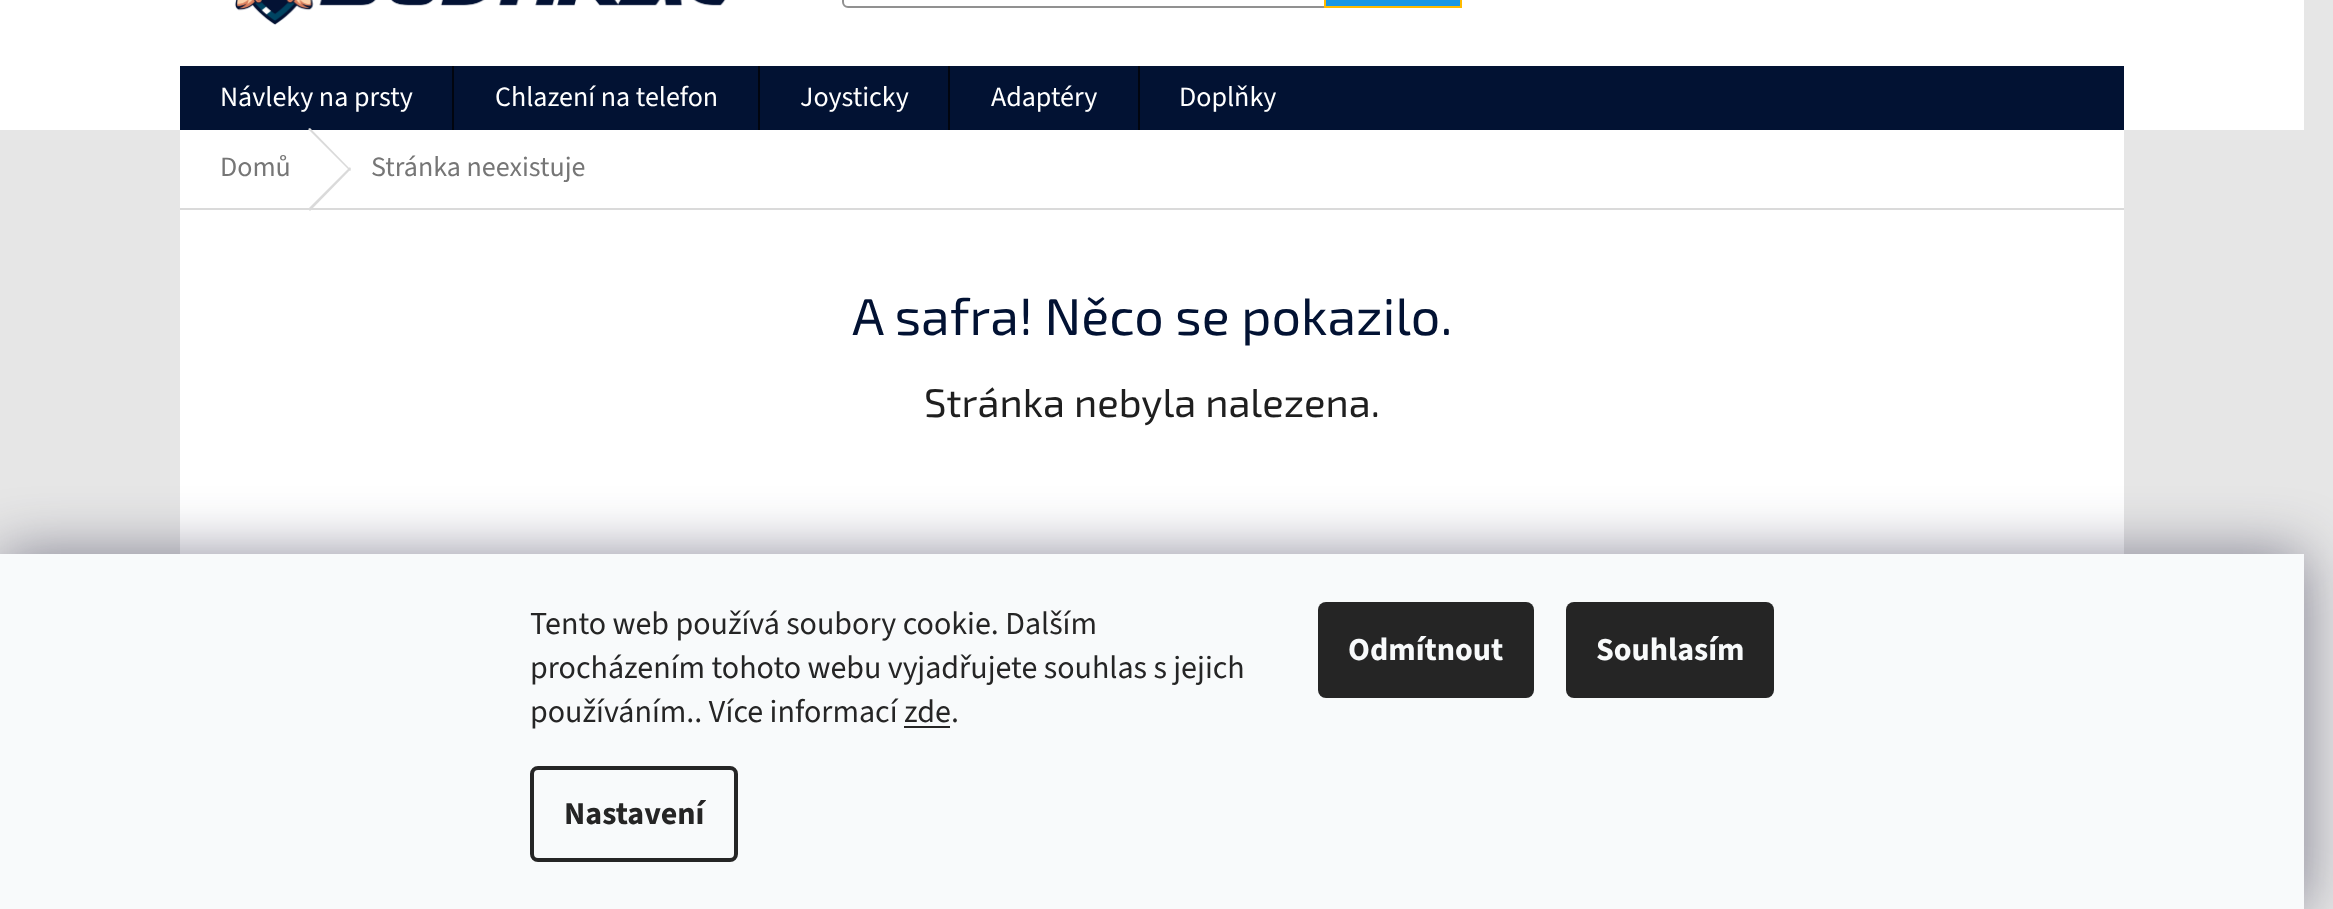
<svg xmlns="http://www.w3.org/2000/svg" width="2333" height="909">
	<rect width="100%" height="100%" fill="#E6E6E6" />
	<rect x="0" y="0" width="2304" height="130" fill="#FFFFFF" />
	<image x="234" y="0" width="492" height="25" href="assets/img1.png" />
	<rect x="843" y="-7" width="618" height="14" rx="5" fill="none" stroke="#919191" stroke-width="2" />
	<rect x="1325" y="-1" width="136" height="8" fill="#1997E5" stroke="#FFBB00" stroke-width="2" />
	<rect x="180" y="66" width="1944" height="64" fill="#021233" />
	<text x="220" y="106" font-family="'Source Sans 3'" font-size="28" fill="#FFFFFF">Návleky na prsty</text>
	<rect x="452" y="66" width="2" height="64" fill="#01050F" />
	<text x="495" y="106" font-family="'Source Sans 3'" font-size="28" fill="#FFFFFF">Chlazení na telefon</text>
	<rect x="758" y="66" width="2" height="64" fill="#01050F" />
	<text x="800" y="106" font-family="'Source Sans 3'" font-size="28" fill="#FFFFFF">Joysticky</text>
	<rect x="948" y="66" width="2" height="64" fill="#01050F" />
	<text x="991" y="106" font-family="'Source Sans 3'" font-size="28" fill="#FFFFFF">Adaptéry</text>
	<rect x="1138" y="66" width="2" height="64" fill="#01050F" />
	<text x="1179" y="106" font-family="'Source Sans 3'" font-size="28" fill="#FFFFFF">Doplňky</text>
	<rect x="180" y="130" width="1944" height="78" fill="#FFFFFF" />
	<rect x="180" y="208" width="1944" height="2" fill="#DADADA" />
	<text x="220" y="176" font-family="'Source Sans 3'" font-size="28" fill="#767676">Domů</text>
	<path d="M308 129L310 128L351 170L350 171Z" fill="#DADADA" />
	<rect x="180" y="210" width="1944" height="344" fill="#FFFFFF" />
	<path d="M350 167L351 169L310 211L308 209Z" fill="#DADADA" />
	<text x="371" y="176" font-family="'Source Sans 3'" font-size="28" fill="#767676">Stránka neexistuje</text>
	<text x="852" y="335" font-family="'Exo 2'" font-size="52" fill="#021233">A safra! Něco se pokazilo.</text>
	<text x="924" y="417" font-family="'Exo 2'" font-size="40" fill="#1F1F1F">Stránka nebyla nalezena.</text>
	<rect x="0" y="554" width="2304" height="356" fill="#1B1939" fill-opacity="0.5" filter="blur(30px)" />
	<rect x="0" y="554" width="2304" height="355" fill="#F8FAFB" />
	<g font-family="'Source Sans 3'" font-size="32" fill="#252525">
		<text x="530" y="634">Tento web používá soubory cookie. Dalším</text>
		<text x="530" y="678">procházením tohoto webu vyjadřujete souhlas s jejich</text>
		<text x="530" y="722">používáním.. Více informací zde.</text>
	</g>
	<rect x="904" y="726" width="46" height="2" fill="#252525" />
	<rect x="532" y="768" width="204" height="92" rx="6" fill="none" stroke="#252525" stroke-width="4" />
	<text x="564" y="824" font-family="'Source Sans 3'" font-size="32" font-weight="700" fill="#252525">Nastavení</text>
	<rect x="1318" y="602" width="216" height="96" rx="8" fill="#252525" />
	<text x="1348" y="660" font-family="'Source Sans 3'" font-size="32" font-weight="700" fill="#F8FAFB">Odmítnout</text>
	<rect x="1566" y="602" width="208" height="96" rx="8" fill="#252525" />
	<text x="1596" y="660" font-family="'Source Sans 3'" font-size="32" font-weight="700" fill="#F8FAFB">Souhlasím</text>
</svg>
